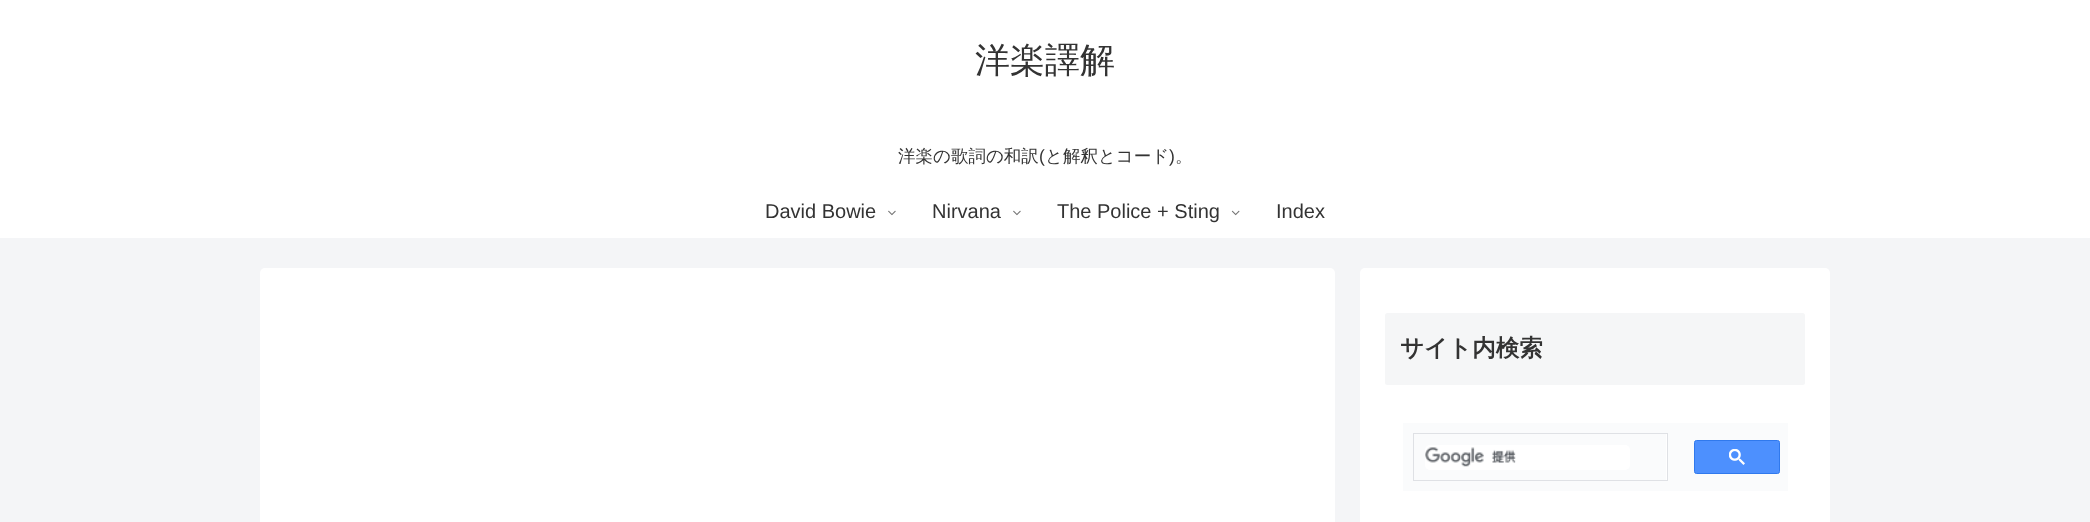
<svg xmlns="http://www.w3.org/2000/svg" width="2090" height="522">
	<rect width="100%" height="100%" fill="#F4F5F7" />
	<rect x="0" y="0" width="2090" height="238" fill="#FFFFFF" />
	<text x="975" y="72" font-family="WenQuanYi Zen Hei" font-size="35" font-weight="500" fill="#333333">洋楽譯解</text>
	<text x="898" y="162" font-family="WenQuanYi Zen Hei" font-size="17.5" font-weight="500" fill="#333333">洋楽の歌詞の和訳</text>
	<text x="1039" y="162" font-family="Liberation Sans" font-size="17.5" fill="#333333">(</text>
	<text x="1045" y="162" font-family="WenQuanYi Zen Hei" font-size="17.5" font-weight="500" fill="#333333">と解釈とコード</text>
	<text x="1169" y="162" font-family="Liberation Sans" font-size="17.5" fill="#333333">)</text>
	<text x="1175" y="162" font-family="WenQuanYi Zen Hei" font-size="17.5" font-weight="500" fill="#333333">。</text>
	<text x="765" y="218" font-family="Liberation Sans" font-size="20" fill="#333333">David Bowie</text>
	<image x="888" y="210" width="8" height="6" href="assets/img1.png" />
	<text x="932" y="218" font-family="Liberation Sans" font-size="20" fill="#333333">Nirvana</text>
	<image x="1013" y="210" width="8" height="6" href="assets/img1.png" />
	<text x="1057" y="218" font-family="Liberation Sans" font-size="20" fill="#333333">The Police + Sting</text>
	<image x="1231" y="210" width="9" height="6" href="assets/img2.png" />
	<text x="1276" y="218" font-family="Liberation Sans" font-size="20" fill="#333333">Index</text>
	<rect x="260" y="268" width="1075" height="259" rx="5" fill="#FFFFFF" />
	<rect x="1360" y="268" width="470" height="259" rx="5" fill="#FFFFFF" />
	<rect x="1385" y="313" width="420" height="72" rx="2.5" fill="#F5F6F7" />
	<text x="1400" y="356" font-family="WenQuanYi Zen Hei" font-size="23.5" font-weight="700" fill="#333333">サイト内検索</text>
	<rect x="1403" y="423" width="385" height="68" fill="#FAFBFC" />
	<rect x="1666" y="434" width="1" height="46" fill="#FFFFFF" />
	<rect x="1413.5" y="433.5" width="254" height="47" fill="none" stroke="#DFE1E5" />
	<rect x="1425" y="445" width="205" height="25" rx="5" fill="#FFFFFF" />
	<image x="1425" y="447" width="91" height="20" href="assets/img3.png" />
	<rect x="1694.5" y="440.5" width="85" height="33" rx="2" fill="#4D90FE" stroke="#3079ED" />
	<image x="1729" y="449" width="16" height="16" href="assets/img4.png" />
</svg>
